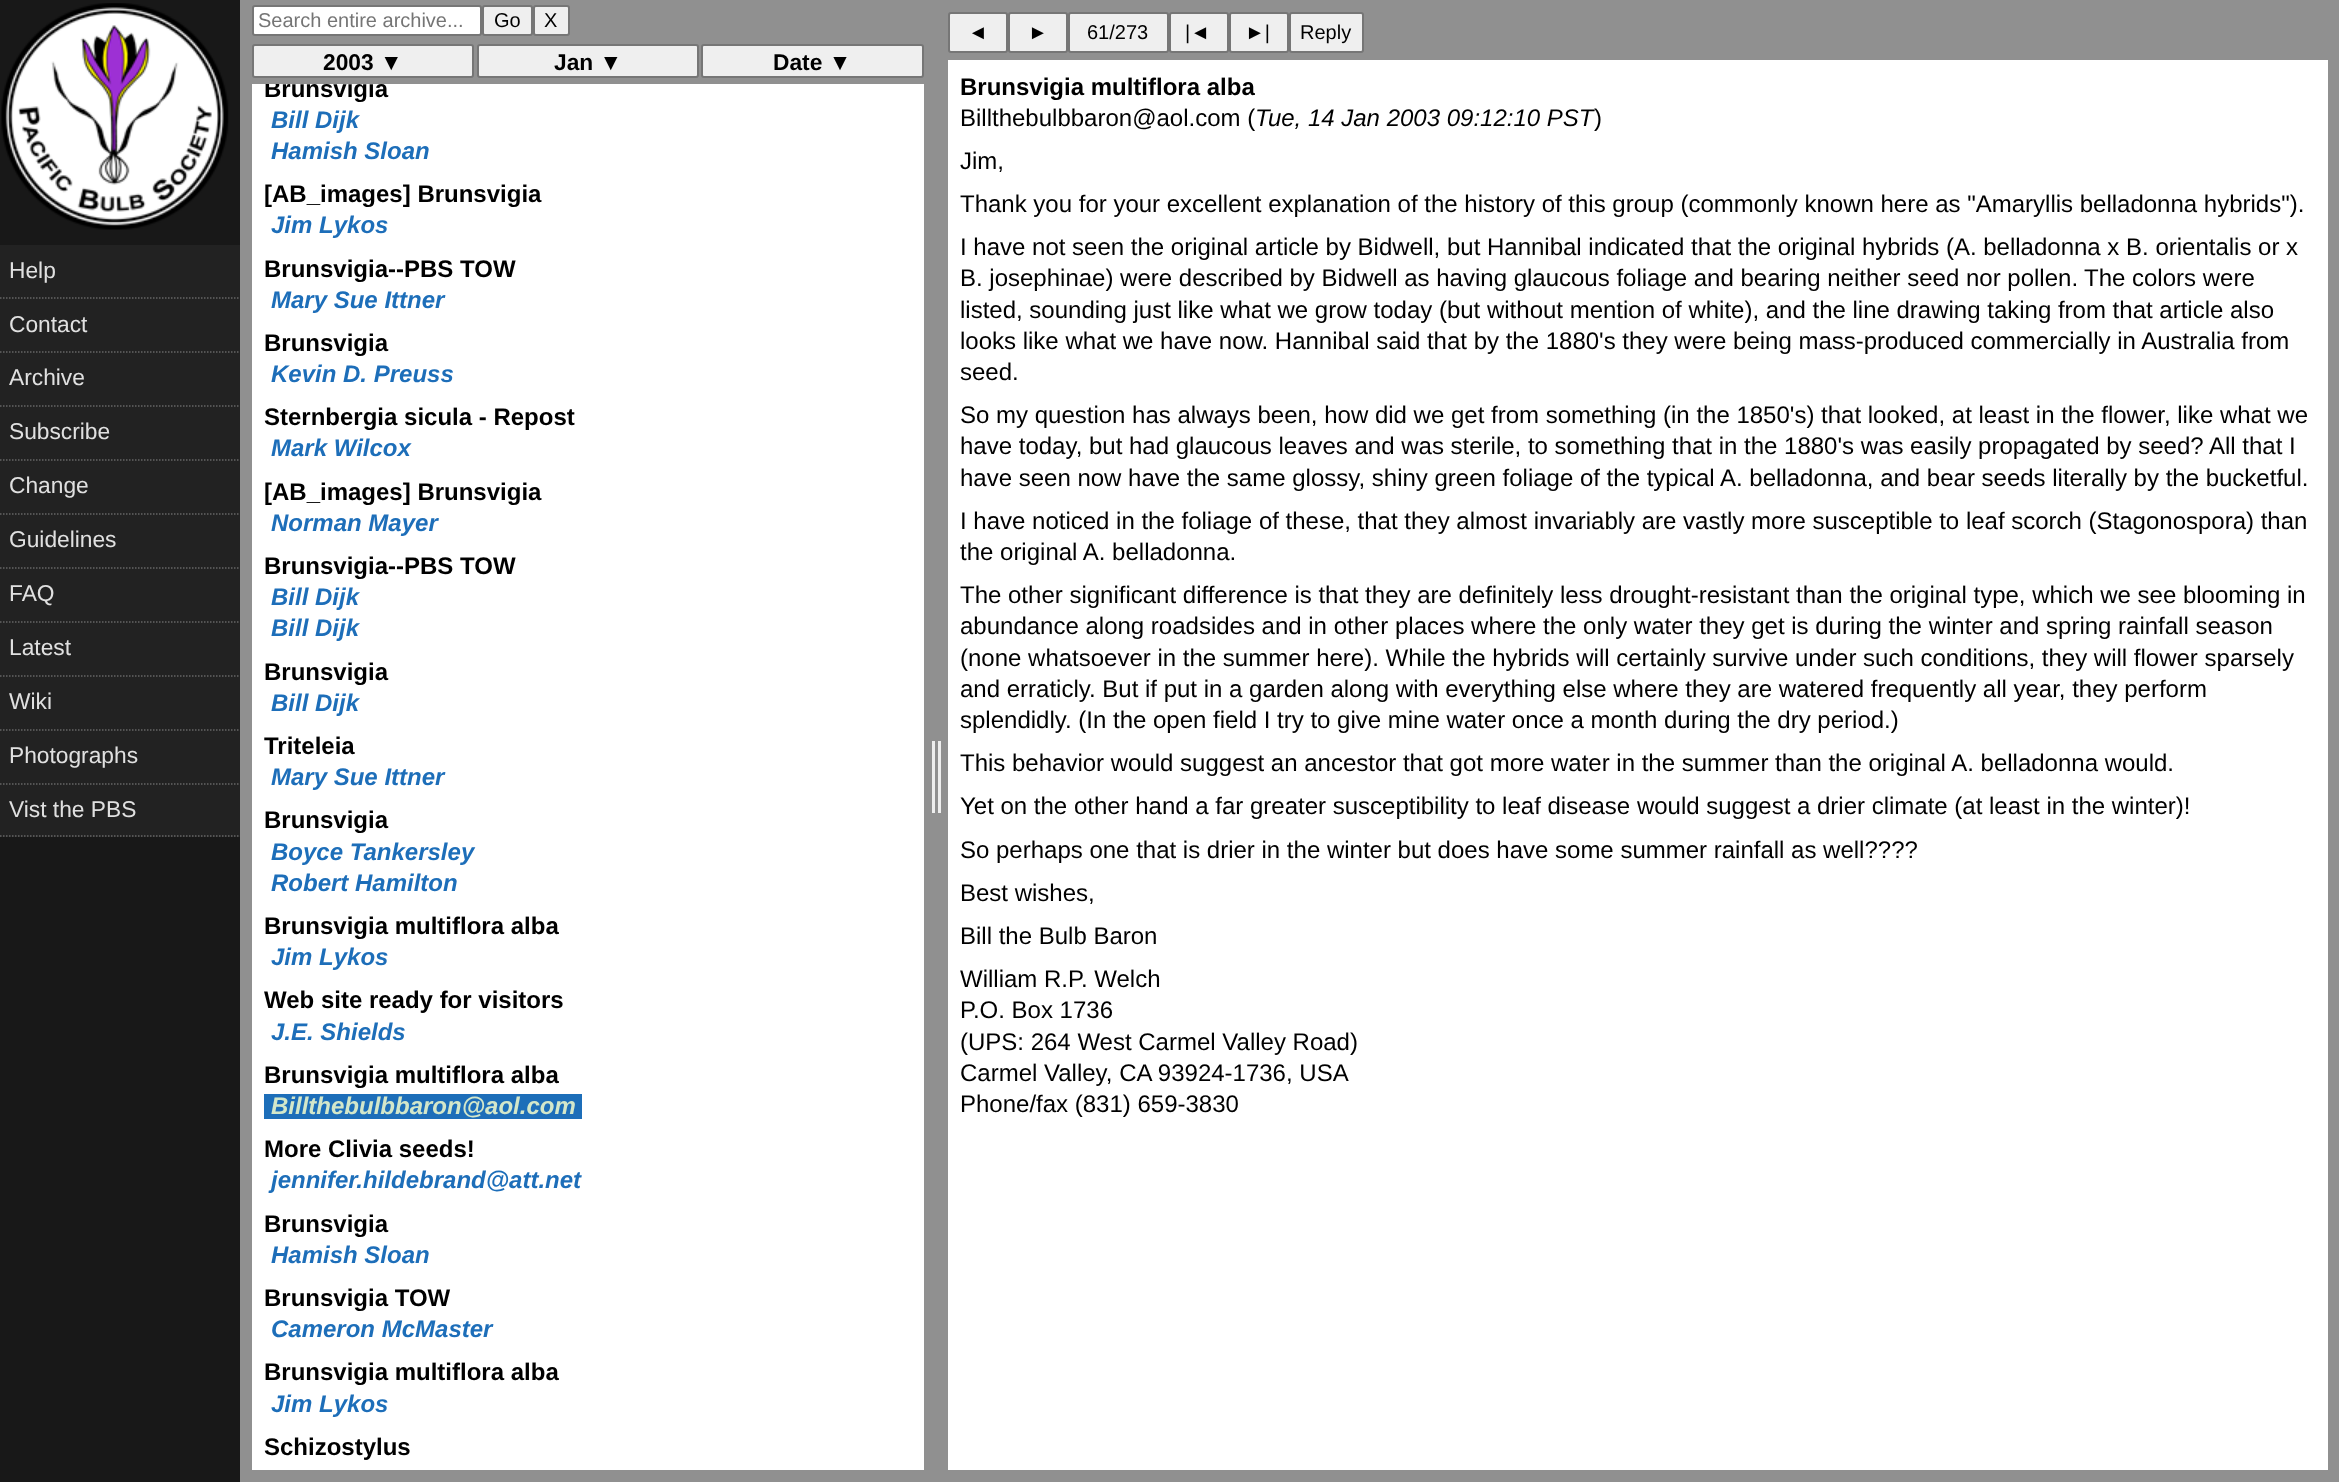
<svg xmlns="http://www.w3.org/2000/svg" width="2339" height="1482">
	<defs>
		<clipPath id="clip1"><rect x="252" y="84" width="672" height="1386" /></clipPath>
	</defs>
	<rect width="100%" height="100%" fill="#909090" />
	<rect x="0" y="0" width="240" height="1482" fill="#181818" />
	<image x="1" y="3" width="228" height="227" href="assets/img1.png" />
	<rect x="0" y="245" width="240" height="592" fill="#222222" />
	<path d="M0 298H240" fill="none" stroke="#666666" stroke-width="1.5" stroke-dasharray="1.5 1.5" />
	<text x="9" y="278" font-family="Liberation Sans" font-size="22.75" fill="#E0E0E0">Help</text>
	<path d="M0 352H240" fill="none" stroke="#666666" stroke-width="1.5" stroke-dasharray="1.5 1.5" />
	<text x="9" y="332" font-family="Liberation Sans" font-size="22.75" fill="#E0E0E0">Contact</text>
	<path d="M0 406H240" fill="none" stroke="#666666" stroke-width="1.5" stroke-dasharray="1.5 1.5" />
	<text x="9" y="385" font-family="Liberation Sans" font-size="22.75" fill="#E0E0E0">Archive</text>
	<path d="M0 460H240" fill="none" stroke="#666666" stroke-width="1.5" stroke-dasharray="1.5 1.5" />
	<text x="9" y="439" font-family="Liberation Sans" font-size="22.75" fill="#E0E0E0">Subscribe</text>
	<path d="M0 514H240" fill="none" stroke="#666666" stroke-width="1.5" stroke-dasharray="1.5 1.5" />
	<text x="9" y="493" font-family="Liberation Sans" font-size="22.75" fill="#E0E0E0">Change</text>
	<path d="M0 568H240" fill="none" stroke="#666666" stroke-width="1.5" stroke-dasharray="1.5 1.5" />
	<text x="9" y="547" font-family="Liberation Sans" font-size="22.75" fill="#E0E0E0">Guidelines</text>
	<path d="M0 622H240" fill="none" stroke="#666666" stroke-width="1.5" stroke-dasharray="1.5 1.5" />
	<text x="9" y="601" font-family="Liberation Sans" font-size="22.75" fill="#E0E0E0">FAQ</text>
	<path d="M0 676H240" fill="none" stroke="#666666" stroke-width="1.5" stroke-dasharray="1.5 1.5" />
	<text x="9" y="655" font-family="Liberation Sans" font-size="22.75" fill="#E0E0E0">Latest</text>
	<path d="M0 730H240" fill="none" stroke="#666666" stroke-width="1.5" stroke-dasharray="1.5 1.5" />
	<text x="9" y="709" font-family="Liberation Sans" font-size="22.75" fill="#E0E0E0">Wiki</text>
	<path d="M0 784H240" fill="none" stroke="#666666" stroke-width="1.5" stroke-dasharray="1.5 1.5" />
	<text x="9" y="763" font-family="Liberation Sans" font-size="22.75" fill="#E0E0E0">Photographs</text>
	<path d="M0 836H240" fill="none" stroke="#666666" stroke-width="1.5" stroke-dasharray="1.5 1.5" />
	<text x="9" y="817" font-family="Liberation Sans" font-size="22.75" fill="#E0E0E0">Vist the PBS</text>
	<rect x="253" y="6" width="228" height="29" rx="2" fill="#FFFFFF" stroke="#767676" stroke-width="2" />
	<text x="258" y="27" font-family="Liberation Sans" font-size="20" fill="#757575">Search entire archive...</text>
	<rect x="483" y="6" width="49" height="29" rx="2" fill="#EFEFEF" stroke="#767676" stroke-width="2" />
	<text x="494" y="27" font-family="Liberation Sans" font-size="20" fill="#000000">Go</text>
	<rect x="534" y="6" width="35" height="29" rx="2" fill="#EFEFEF" stroke="#767676" stroke-width="2" />
	<text x="544" y="27" font-family="Liberation Sans" font-size="20" fill="#000000">X</text>
	<rect x="253" y="45" width="220" height="32" rx="2" fill="#EFEFEF" stroke="#767676" stroke-width="2" />
	<text x="323" y="70" font-family="Liberation Sans" font-size="22.75" font-weight="700" fill="#000000">2003 ▼</text>
	<rect x="478" y="45" width="220" height="32" rx="2" fill="#EFEFEF" stroke="#767676" stroke-width="2" />
	<text x="554" y="70" font-family="Liberation Sans" font-size="22.75" font-weight="700" fill="#000000">Jan ▼</text>
	<rect x="702" y="45" width="221" height="32" rx="2" fill="#EFEFEF" stroke="#767676" stroke-width="2" />
	<text x="773" y="70" font-family="Liberation Sans" font-size="22.75" font-weight="700" fill="#000000">Date ▼</text>
	<rect x="252" y="84" width="672" height="1386" fill="#FFFFFF" />
	<g clip-path="url(#clip1)">
		<text x="264" y="97" font-family="Liberation Sans" font-size="24" font-weight="700" fill="#000000">Brunsvigia</text>
	</g>
	<g font-family="Liberation Sans" font-size="24" font-weight="700" font-style="italic" fill="#1D6EB9">
		<text x="271" y="128">Bill Dijk</text>
		<text x="271" y="159">Hamish Sloan</text>
	</g>
	<text x="264" y="202" font-family="Liberation Sans" font-size="24" font-weight="700" fill="#000000">[AB_images] Brunsvigia</text>
	<text x="271" y="233" font-family="Liberation Sans" font-size="24" font-weight="700" font-style="italic" fill="#1D6EB9">Jim Lykos</text>
	<text x="264" y="277" font-family="Liberation Sans" font-size="24" font-weight="700" fill="#000000">Brunsvigia--PBS TOW</text>
	<text x="271" y="308" font-family="Liberation Sans" font-size="24" font-weight="700" font-style="italic" fill="#1D6EB9">Mary Sue Ittner</text>
	<text x="264" y="351" font-family="Liberation Sans" font-size="24" font-weight="700" fill="#000000">Brunsvigia</text>
	<text x="271" y="382" font-family="Liberation Sans" font-size="24" font-weight="700" font-style="italic" fill="#1D6EB9">Kevin D. Preuss</text>
	<text x="264" y="425" font-family="Liberation Sans" font-size="24" font-weight="700" fill="#000000">Sternbergia sicula - Repost</text>
	<text x="271" y="456" font-family="Liberation Sans" font-size="24" font-weight="700" font-style="italic" fill="#1D6EB9">Mark Wilcox</text>
	<text x="264" y="500" font-family="Liberation Sans" font-size="24" font-weight="700" fill="#000000">[AB_images] Brunsvigia</text>
	<text x="271" y="531" font-family="Liberation Sans" font-size="24" font-weight="700" font-style="italic" fill="#1D6EB9">Norman Mayer</text>
	<text x="264" y="574" font-family="Liberation Sans" font-size="24" font-weight="700" fill="#000000">Brunsvigia--PBS TOW</text>
	<g font-family="Liberation Sans" font-size="24" font-weight="700" font-style="italic" fill="#1D6EB9">
		<text x="271" y="605">Bill Dijk</text>
		<text x="271" y="636">Bill Dijk</text>
	</g>
	<text x="264" y="680" font-family="Liberation Sans" font-size="24" font-weight="700" fill="#000000">Brunsvigia</text>
	<text x="271" y="711" font-family="Liberation Sans" font-size="24" font-weight="700" font-style="italic" fill="#1D6EB9">Bill Dijk</text>
	<text x="264" y="754" font-family="Liberation Sans" font-size="24" font-weight="700" fill="#000000">Triteleia</text>
	<text x="271" y="785" font-family="Liberation Sans" font-size="24" font-weight="700" font-style="italic" fill="#1D6EB9">Mary Sue Ittner</text>
	<text x="264" y="828" font-family="Liberation Sans" font-size="24" font-weight="700" fill="#000000">Brunsvigia</text>
	<g font-family="Liberation Sans" font-size="24" font-weight="700" font-style="italic" fill="#1D6EB9">
		<text x="271" y="860">Boyce Tankersley</text>
		<text x="271" y="891">Robert Hamilton</text>
	</g>
	<text x="264" y="934" font-family="Liberation Sans" font-size="24" font-weight="700" fill="#000000">Brunsvigia multiflora alba</text>
	<text x="271" y="965" font-family="Liberation Sans" font-size="24" font-weight="700" font-style="italic" fill="#1D6EB9">Jim Lykos</text>
	<text x="264" y="1008" font-family="Liberation Sans" font-size="24" font-weight="700" fill="#000000">Web site ready for visitors</text>
	<text x="271" y="1040" font-family="Liberation Sans" font-size="24" font-weight="700" font-style="italic" fill="#1D6EB9">J.E. Shields</text>
	<text x="264" y="1083" font-family="Liberation Sans" font-size="24" font-weight="700" fill="#000000">Brunsvigia multiflora alba</text>
	<rect x="264" y="1094" width="318" height="25" fill="#1D6EB9" />
	<text x="271" y="1114" font-family="Liberation Sans" font-size="24" font-weight="700" font-style="italic" fill="#D3E7CA">Billthebulbbaron@aol.com</text>
	<text x="264" y="1157" font-family="Liberation Sans" font-size="24" font-weight="700" fill="#000000">More Clivia seeds!</text>
	<text x="271" y="1188" font-family="Liberation Sans" font-size="24" font-weight="700" font-style="italic" fill="#1D6EB9">jennifer.hildebrand@att.net</text>
	<text x="264" y="1232" font-family="Liberation Sans" font-size="24" font-weight="700" fill="#000000">Brunsvigia</text>
	<text x="271" y="1263" font-family="Liberation Sans" font-size="24" font-weight="700" font-style="italic" fill="#1D6EB9">Hamish Sloan</text>
	<text x="264" y="1306" font-family="Liberation Sans" font-size="24" font-weight="700" fill="#000000">Brunsvigia TOW</text>
	<text x="271" y="1337" font-family="Liberation Sans" font-size="24" font-weight="700" font-style="italic" fill="#1D6EB9">Cameron McMaster</text>
	<text x="264" y="1380" font-family="Liberation Sans" font-size="24" font-weight="700" fill="#000000">Brunsvigia multiflora alba</text>
	<text x="271" y="1412" font-family="Liberation Sans" font-size="24" font-weight="700" font-style="italic" fill="#1D6EB9">Jim Lykos</text>
	<text x="264" y="1455" font-family="Liberation Sans" font-size="24" font-weight="700" fill="#000000">Schizostylus</text>
	<rect x="938" y="741" width="3" height="72" fill="#EEEEEE" />
	<rect x="932" y="741" width="3" height="72" fill="#EEEEEE" />
	<rect x="949" y="13" width="58" height="39" rx="2" fill="#EFEFEF" stroke="#767676" stroke-width="2" />
	<text x="968" y="39" font-family="Liberation Sans" font-size="20" fill="#000000">◄</text>
	<rect x="1009" y="13" width="58" height="39" rx="2" fill="#EFEFEF" stroke="#767676" stroke-width="2" />
	<text x="1028" y="39" font-family="Liberation Sans" font-size="20" fill="#000000">►</text>
	<rect x="1069" y="13" width="99" height="39" rx="2" fill="#EFEFEF" stroke="#767676" stroke-width="2" />
	<text x="1087" y="39" font-family="Liberation Sans" font-size="20" fill="#000000">61/273</text>
	<rect x="1170" y="13" width="58" height="39" rx="2" fill="#EFEFEF" stroke="#767676" stroke-width="2" />
	<text x="1185" y="39" font-family="Liberation Sans" font-size="20" fill="#000000">|◄</text>
	<rect x="1230" y="13" width="58" height="39" rx="2" fill="#EFEFEF" stroke="#767676" stroke-width="2" />
	<text x="1245" y="39" font-family="Liberation Sans" font-size="20" fill="#000000">►|</text>
	<rect x="1290" y="13" width="73" height="39" rx="2" fill="#EFEFEF" stroke="#767676" stroke-width="2" />
	<text x="1300" y="39" font-family="Liberation Sans" font-size="20" fill="#000000">Reply</text>
	<rect x="948" y="60" width="1380" height="1410" fill="#FFFFFF" />
	<text x="960" y="95" font-family="Liberation Sans" font-size="24" font-weight="700" fill="#000000">Brunsvigia multiflora alba</text>
	<text x="960" y="126" font-family="Liberation Sans" font-size="24" fill="#000000">Billthebulbbaron@aol.com (</text>
	<text x="1255" y="126" font-family="Liberation Sans" font-size="24" font-style="italic" fill="#000000">Tue, 14 Jan 2003 09:12:10 PST</text>
	<g font-family="Liberation Sans" font-size="24" fill="#000000">
		<text x="1594" y="126">)</text>
		<text x="960" y="169">Jim,</text>
		<text x="960" y="212">Thank you for your excellent explanation of the history of this group (commonly known here as "Amaryllis belladonna hybrids").</text>
		<text x="960" y="255">I have not seen the original article by Bidwell, but Hannibal indicated that the original hybrids (A. belladonna x B. orientalis or x</text>
		<text x="960" y="286">B. josephinae) were described by Bidwell as having glaucous foliage and bearing neither seed nor pollen.</text>
		<text x="2084" y="286">The colors were</text>
		<text x="960" y="318">listed, sounding just like what we grow today (but without mention of white), and the line drawing taking from that article also</text>
		<text x="960" y="349">looks like what we have now. Hannibal said that by the 1880's they were being mass-produced commercially in Australia from</text>
		<text x="960" y="380">seed.</text>
		<text x="960" y="423">So my question has always been, how did we get from something (in the 1850's) that looked, at least in the flower, like what we</text>
		<text x="960" y="454">have today, but had glaucous leaves and was sterile, to something that in the 1880's was easily propagated by seed? All that I</text>
		<text x="960" y="486">have seen now have the same glossy, shiny green foliage of the typical A. belladonna, and bear seeds literally by the bucketful.</text>
		<text x="960" y="529">I have noticed in the foliage of these, that they almost invariably are vastly more susceptible to leaf scorch (Stagonospora) than</text>
		<text x="960" y="560">the original A. belladonna.</text>
		<text x="960" y="603">The other significant difference is that they are definitely less drought-resistant than the original type, which we see blooming in</text>
		<text x="960" y="634">abundance along roadsides and in other places where the only water they get is during the winter and spring rainfall season</text>
		<text x="960" y="666">(none whatsoever in the summer here). While the hybrids will certainly survive under such conditions, they will flower sparsely</text>
		<text x="960" y="697">and erraticly. But if put in a garden along with everything else where they are watered frequently all year, they perform</text>
		<text x="960" y="728">splendidly. (In the open field I try to give mine water once a month during the dry period.)</text>
		<text x="960" y="771">This behavior would suggest an ancestor that got more water in the summer than the original A. belladonna would.</text>
		<text x="960" y="814">Yet on the other hand a far greater susceptibility to leaf disease would suggest a drier climate (at least in the winter)!</text>
		<text x="960" y="858">So perhaps one that is drier in the winter but does have some summer rainfall as well????</text>
		<text x="960" y="901">Best wishes,</text>
		<text x="960" y="944">Bill the Bulb Baron</text>
		<text x="960" y="987">William R.P. Welch</text>
		<text x="960" y="1018">P.O. Box 1736</text>
		<text x="960" y="1050">(UPS: 264 West Carmel Valley Road)</text>
		<text x="960" y="1081">Carmel Valley, CA 93924-1736, USA</text>
		<text x="960" y="1112">Phone/fax (831) 659-3830</text>
	</g>
</svg>
